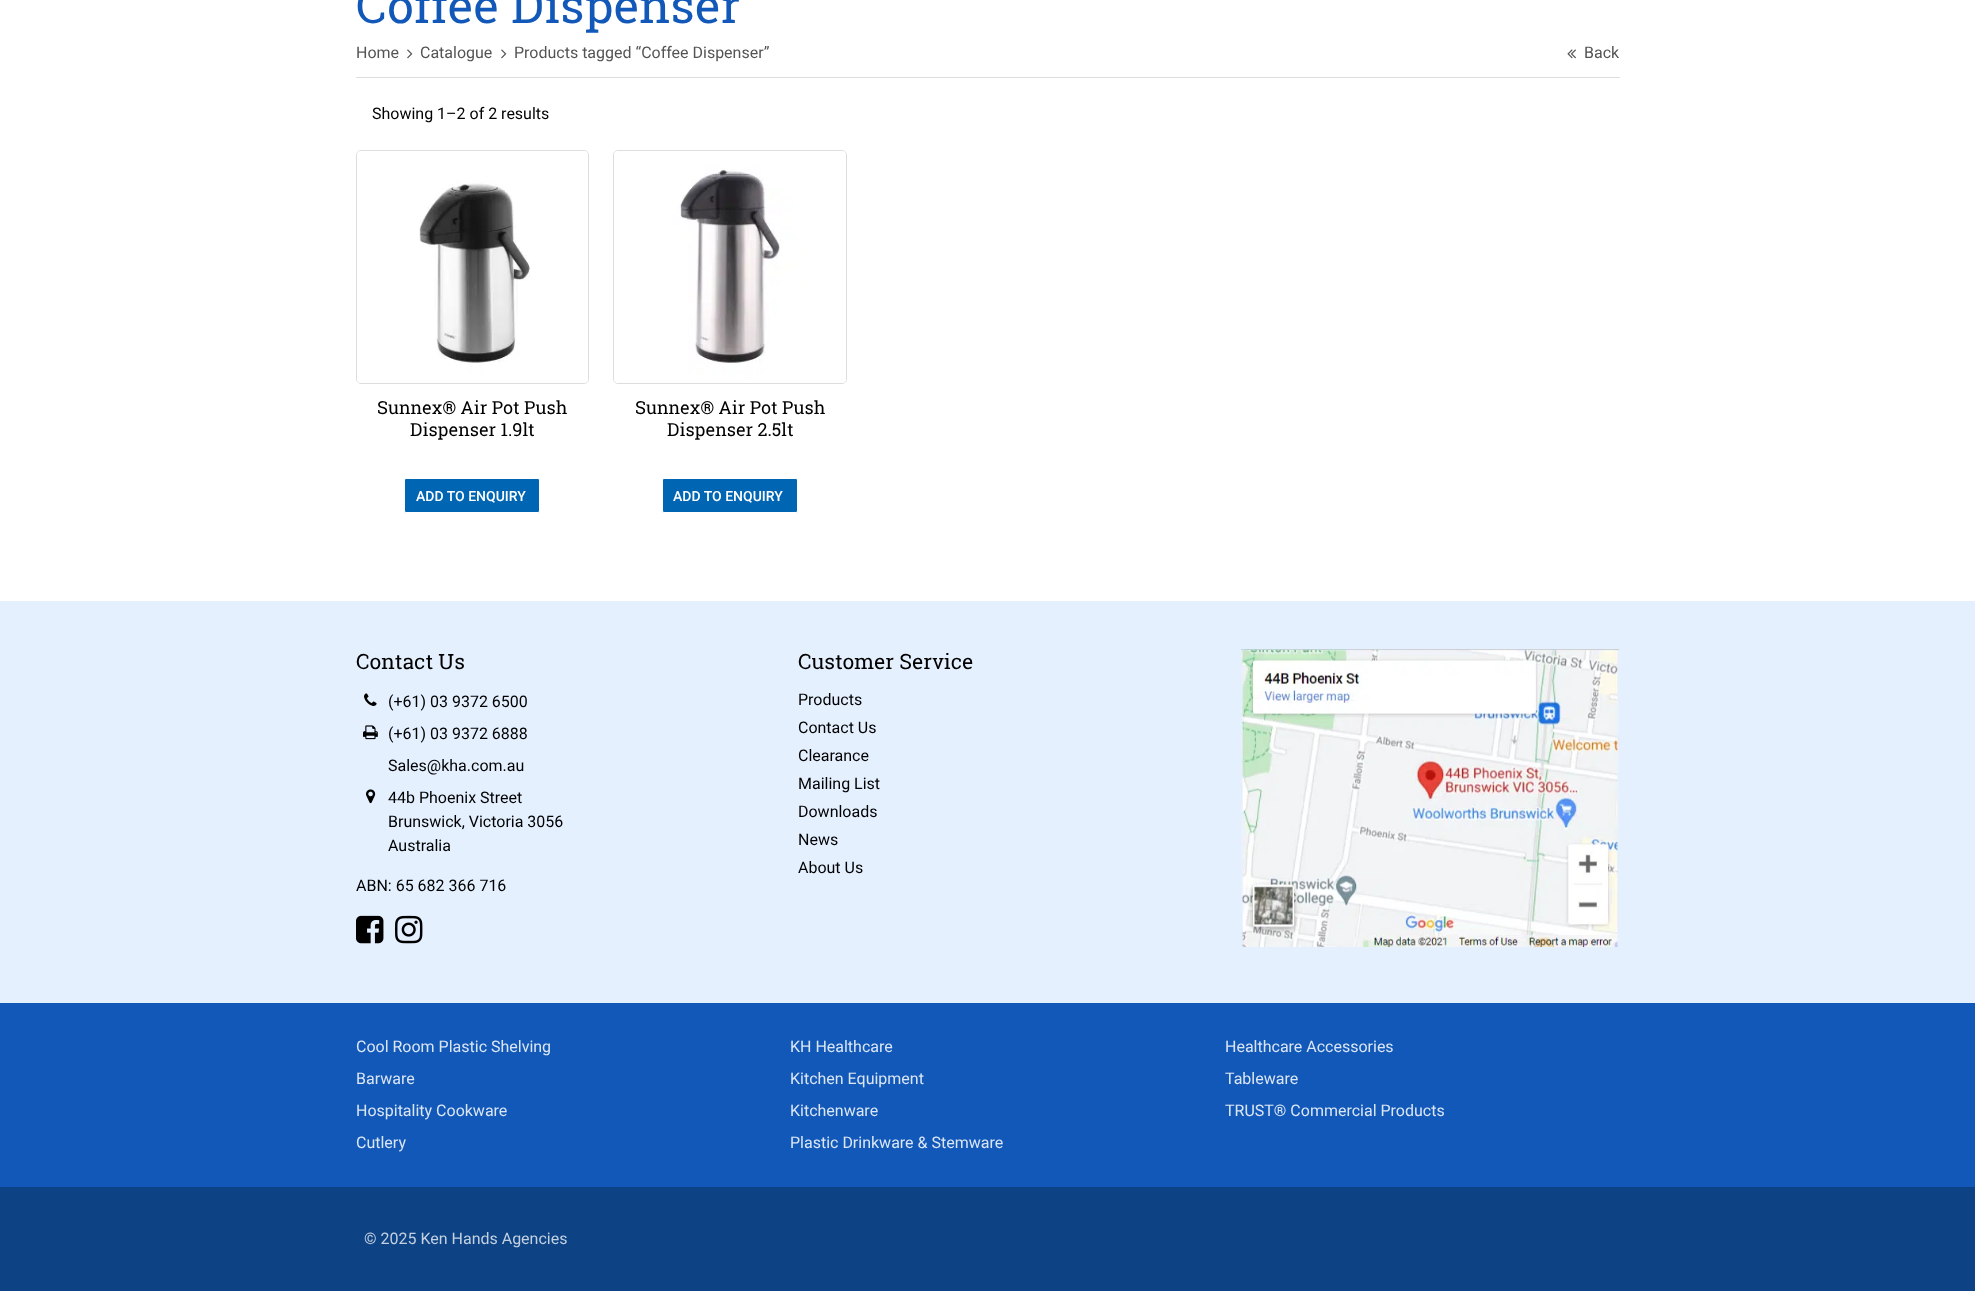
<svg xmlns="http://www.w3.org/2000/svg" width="1975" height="1291">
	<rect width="100%" height="100%" fill="#FFFFFF" />
	<text x="356" y="23" font-family="Roboto Slab" font-size="48" fill="#1258B8">Coffee Dispenser</text>
	<rect x="356" y="77" width="1264" height="1" fill="#DDDDDD" />
	<text x="356" y="58" font-family="Roboto" font-size="16" fill="#545454">Home</text>
	<image x="407" y="49" width="6" height="10" href="assets/img1.png" />
	<text x="420" y="58" font-family="Roboto" font-size="16" fill="#545454">Catalogue</text>
	<image x="501" y="49" width="6" height="10" href="assets/img1.png" />
	<text x="514" y="58" font-family="Roboto" font-size="16" fill="#545454">Products tagged “Coffee Dispenser”</text>
	<image x="1567" y="49" width="9" height="10" href="assets/img2.png" />
	<text x="1584" y="58" font-family="Roboto" font-size="16" fill="#545454">Back</text>
	<text x="372" y="119" font-family="Roboto" font-size="16" fill="#000000">Showing 1–2 of 2 results</text>
	<rect x="356.5" y="150.5" width="232" height="233" rx="4.5" fill="none" stroke="#DDDDDD" />
	<image x="357" y="151" width="231" height="232" href="assets/img3.png" />
	<g font-family="Roboto Slab" font-size="18" fill="#000000">
		<text x="377" y="414">Sunnex® Air Pot Push</text>
		<text x="410" y="436">Dispenser 1.9lt</text>
	</g>
	<rect x="404.5" y="478.5" width="135" height="34" rx="1.5" fill="#0066B4" stroke="#FFFFFF" />
	<text x="416" y="501" font-family="Roboto" font-size="14" font-weight="500" fill="#FFFFFF">ADD TO ENQUIRY</text>
	<rect x="613.5" y="150.5" width="233" height="233" rx="4.5" fill="none" stroke="#DDDDDD" />
	<image x="614" y="151" width="232" height="232" href="assets/img4.png" />
	<g font-family="Roboto Slab" font-size="18" fill="#000000">
		<text x="635" y="414">Sunnex® Air Pot Push</text>
		<text x="667" y="436">Dispenser 2.5lt</text>
	</g>
	<rect x="662.5" y="478.5" width="135" height="34" rx="1.5" fill="#0066B4" stroke="#FFFFFF" />
	<text x="673" y="501" font-family="Roboto" font-size="14" font-weight="500" fill="#FFFFFF">ADD TO ENQUIRY</text>
	<rect x="0" y="601" width="1975" height="402" fill="#E5F0FF" />
	<text x="356" y="669" font-family="Roboto Slab" font-size="21" fill="#000000">Contact Us</text>
	<image x="364" y="693" width="13" height="13" href="assets/img5.png" />
	<text x="388" y="707" font-family="Roboto" font-size="16" fill="#000000">(+61) 03 9372 6500</text>
	<image x="363" y="725" width="15" height="15" href="assets/img6.png" />
	<g font-family="Roboto" font-size="16" fill="#000000">
		<text x="388" y="739">(+61) 03 9372 6888</text>
		<text x="388" y="771">Sales@kha.com.au</text>
	</g>
	<image x="366" y="789" width="10" height="15" href="assets/img7.png" />
	<g font-family="Roboto" font-size="16" fill="#000000">
		<text x="388" y="803">44b Phoenix Street</text>
		<text x="388" y="827">Brunswick, Victoria 3056</text>
		<text x="388" y="851">Australia</text>
		<text x="356" y="891">ABN: 65 682 366 716</text>
	</g>
	<image x="356" y="915" width="28" height="29" href="assets/img8.png" />
	<image x="395" y="915" width="28" height="29" href="assets/img9.png" />
	<text x="798" y="669" font-family="Roboto Slab" font-size="21" fill="#000000">Customer Service</text>
	<g font-family="Roboto" font-size="16" fill="#000000">
		<text x="798" y="705">Products</text>
		<text x="798" y="733">Contact Us</text>
		<text x="798" y="761">Clearance</text>
		<text x="798" y="789">Mailing List</text>
		<text x="798" y="817">Downloads</text>
		<text x="798" y="845">News</text>
		<text x="798" y="873">About Us</text>
	</g>
	<image x="1241" y="649" width="378" height="298" href="assets/img10.png" />
	<rect x="0" y="1003" width="1975" height="184" fill="#1258B8" />
	<g font-family="Roboto" font-size="16" fill="#DBE6F4">
		<text x="356" y="1052">Cool Room Plastic Shelving</text>
		<text x="790" y="1052">KH Healthcare</text>
		<text x="1225" y="1052">Healthcare Accessories</text>
		<text x="356" y="1084">Barware</text>
		<text x="790" y="1084">Kitchen Equipment</text>
		<text x="1225" y="1084">Tableware</text>
		<text x="356" y="1116">Hospitality Cookware</text>
		<text x="790" y="1116">Kitchenware</text>
		<text x="1225" y="1116">TRUST® Commercial Products</text>
		<text x="356" y="1148">Cutlery</text>
		<text x="790" y="1148">Plastic Drinkware &amp; Stemware</text>
	</g>
	<rect x="0" y="1187" width="1975" height="104" fill="#0D4384" />
	<text x="364" y="1244" font-family="Roboto" font-size="16" fill="#C3D0E0">© 2025 Ken Hands Agencies</text>
</svg>
